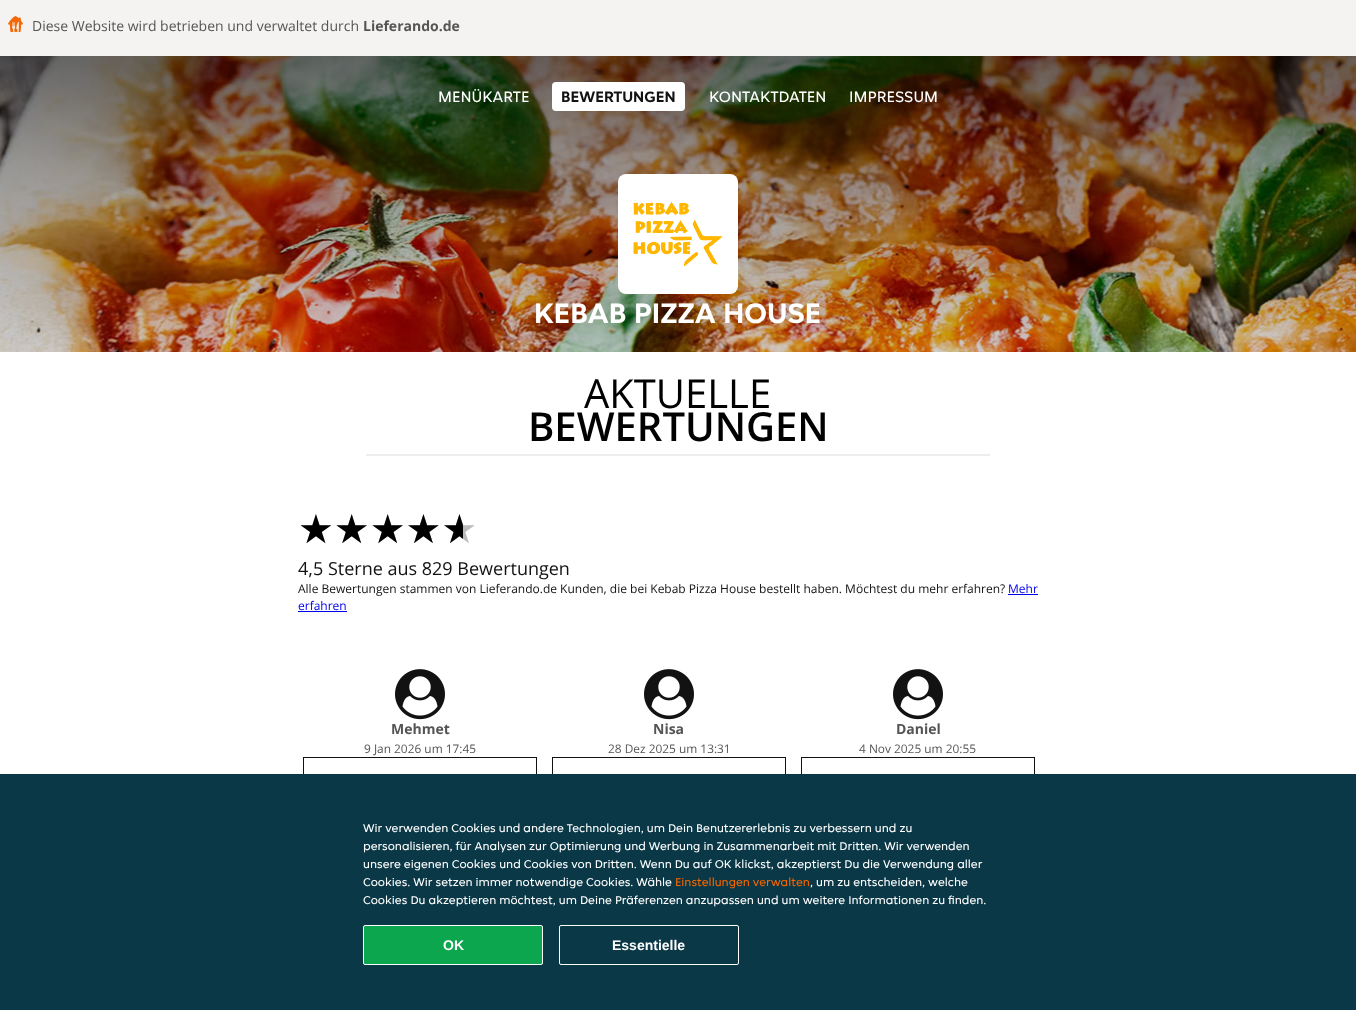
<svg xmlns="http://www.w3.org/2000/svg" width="1356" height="1010">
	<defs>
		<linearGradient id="g1" gradientUnits="userSpaceOnUse" x1="678" y1="0" x2="678" y2="500"><stop offset="0" stop-color="#000000" stop-opacity="0.7" /><stop offset="0.33" stop-color="#000000" stop-opacity="0.4" /><stop offset="0.67" stop-color="#000000" stop-opacity="0.2" /><stop offset="1" stop-color="#000000" stop-opacity="0" /></linearGradient>
		<clipPath id="clip1"><rect x="298" y="508" width="165" height="40" /></clipPath>
	</defs>
	<rect width="100%" height="100%" fill="#FFFFFF" />
	<rect x="0" y="0" width="1356" height="56" fill="#F5F3F1" />
	<image x="8" y="16" width="15" height="16" href="assets/img1.png" />
	<text x="32" y="31" font-family="Open Sans" font-size="14" fill="#555555">Diese Website wird betrieben und verwaltet durch</text>
	<text x="363" y="31" font-family="Open Sans" font-size="14" font-weight="700" fill="#555555">Lieferando.de</text>
	<image x="0" y="56" width="1356" height="296" href="assets/img2.png" />
	<rect x="0" y="56" width="1356" height="296" fill="url(#g1)" />
	<text x="438" y="102" font-family="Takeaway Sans" font-size="16" fill="#FFFFFF">MENÜKARTE</text>
	<rect x="552" y="82" width="133" height="29" rx="4" fill="#FFFFFF" />
	<text x="561" y="102" font-family="Takeaway Sans" font-size="16" font-weight="700" fill="#121212">BEWERTUNGEN</text>
	<g font-family="Takeaway Sans" font-size="16" fill="#FFFFFF">
		<text x="709" y="102">KONTAKTDATEN</text>
		<text x="849" y="102">IMPRESSUM</text>
	</g>
	<rect x="618" y="174" width="120" height="120" rx="8" fill="#FFFFFF" />
	<image x="633" y="202" width="90" height="65" href="assets/img3.png" />
	<text x="534" y="323" font-family="Takeaway Sans" font-size="30" font-weight="700" fill="#FFFFFF">KEBAB PIZZA HOUSE</text>
	<text x="584" y="408" font-family="Open Sans" font-size="40" fill="#000000">AKTUELLE</text>
	<text x="528" y="441" font-family="Open Sans" font-size="40" font-weight="600" fill="#000000">BEWERTUNGEN</text>
	<rect x="366" y="454" width="624" height="2" fill="#EEEEEE" />
	<text x="298" y="543" font-family="DejaVu Sans" font-size="40" fill="#BBBBBB">★★★★★</text>
	<g clip-path="url(#clip1)">
		<text x="298" y="543" font-family="DejaVu Sans" font-size="40" fill="#000000">★★★★★</text>
	</g>
	<text x="298" y="575" font-family="Open Sans" font-size="18" fill="#121212">4,5 Sterne aus 829 Bewertungen</text>
	<text x="298" y="593" font-family="Open Sans" font-size="12" fill="#121212">Alle Bewertungen stammen von Lieferando.de Kunden, die bei Kebab Pizza House bestellt haben. Möchtest du mehr erfahren?</text>
	<text x="1008" y="593" font-family="Open Sans" font-size="12" fill="#0000EE">Mehr</text>
	<rect x="1008" y="594" width="30" height="1" fill="#0000EE" />
	<text x="298" y="610" font-family="Open Sans" font-size="12" fill="#0000EE">erfahren</text>
	<rect x="298" y="611" width="49" height="1" fill="#0000EE" />
	<image x="395" y="669" width="50" height="51" href="assets/img4.png" />
	<text x="391" y="734" font-family="Open Sans" font-size="14" font-weight="700" fill="#555555">Mehmet</text>
	<text x="364" y="753" font-family="Open Sans" font-size="11.9" fill="#555555">9 Jan 2026 um 17:45</text>
	<rect x="303.5" y="757.5" width="233" height="99" fill="none" stroke="#121212" />
	<image x="644" y="669" width="50" height="51" href="assets/img4.png" />
	<text x="653" y="734" font-family="Open Sans" font-size="14" font-weight="700" fill="#555555">Nisa</text>
	<text x="608" y="753" font-family="Open Sans" font-size="11.9" fill="#555555">28 Dez 2025 um 13:31</text>
	<rect x="552.5" y="757.5" width="233" height="99" fill="none" stroke="#121212" />
	<image x="893" y="669" width="50" height="51" href="assets/img4.png" />
	<text x="896" y="734" font-family="Open Sans" font-size="14" font-weight="700" fill="#555555">Daniel</text>
	<text x="859" y="753" font-family="Open Sans" font-size="11.9" fill="#555555">4 Nov 2025 um 20:55</text>
	<rect x="801.5" y="757.5" width="233" height="99" fill="none" stroke="#121212" />
	<rect x="0" y="774" width="1356" height="236" fill="#0A3847" />
	<g font-family="Takeaway Sans" font-size="12" fill="#FFFFFF">
		<text x="363" y="832">Wir verwenden Cookies und andere Technologien, um Dein Benutzererlebnis zu verbessern und zu</text>
		<text x="363" y="850">personalisieren, für Analysen zur Optimierung und Werbung in Zusammenarbeit mit Dritten. Wir verwenden</text>
		<text x="363" y="868">unsere eigenen Cookies und Cookies von Dritten. Wenn Du auf OK klickst, akzeptierst Du die Verwendung aller</text>
		<text x="363" y="886">Cookies. Wir setzen immer notwendige Cookies. Wähle</text>
	</g>
	<text x="675" y="886" font-family="Takeaway Sans" font-size="12" fill="#F86600">Einstellungen verwalten</text>
	<g font-family="Takeaway Sans" font-size="12" fill="#FFFFFF">
		<text x="810" y="886">, um zu entscheiden, welche</text>
		<text x="363" y="904">Cookies Du akzeptieren möchtest, um Deine Präferenzen anzupassen und um weitere Informationen zu finden.</text>
	</g>
	<rect x="363.5" y="925.5" width="179" height="39" rx="1.5" fill="#0CA64F" stroke="#FFFFFF" />
	<text x="443" y="950" font-family="Liberation Sans" font-size="14" font-weight="700" fill="#FFFFFF">OK</text>
	<rect x="559.5" y="925.5" width="179" height="39" rx="1.5" fill="none" stroke="#FFFFFF" />
	<text x="612" y="950" font-family="Liberation Sans" font-size="14" font-weight="700" fill="#FFFFFF">Essentielle</text>
</svg>
